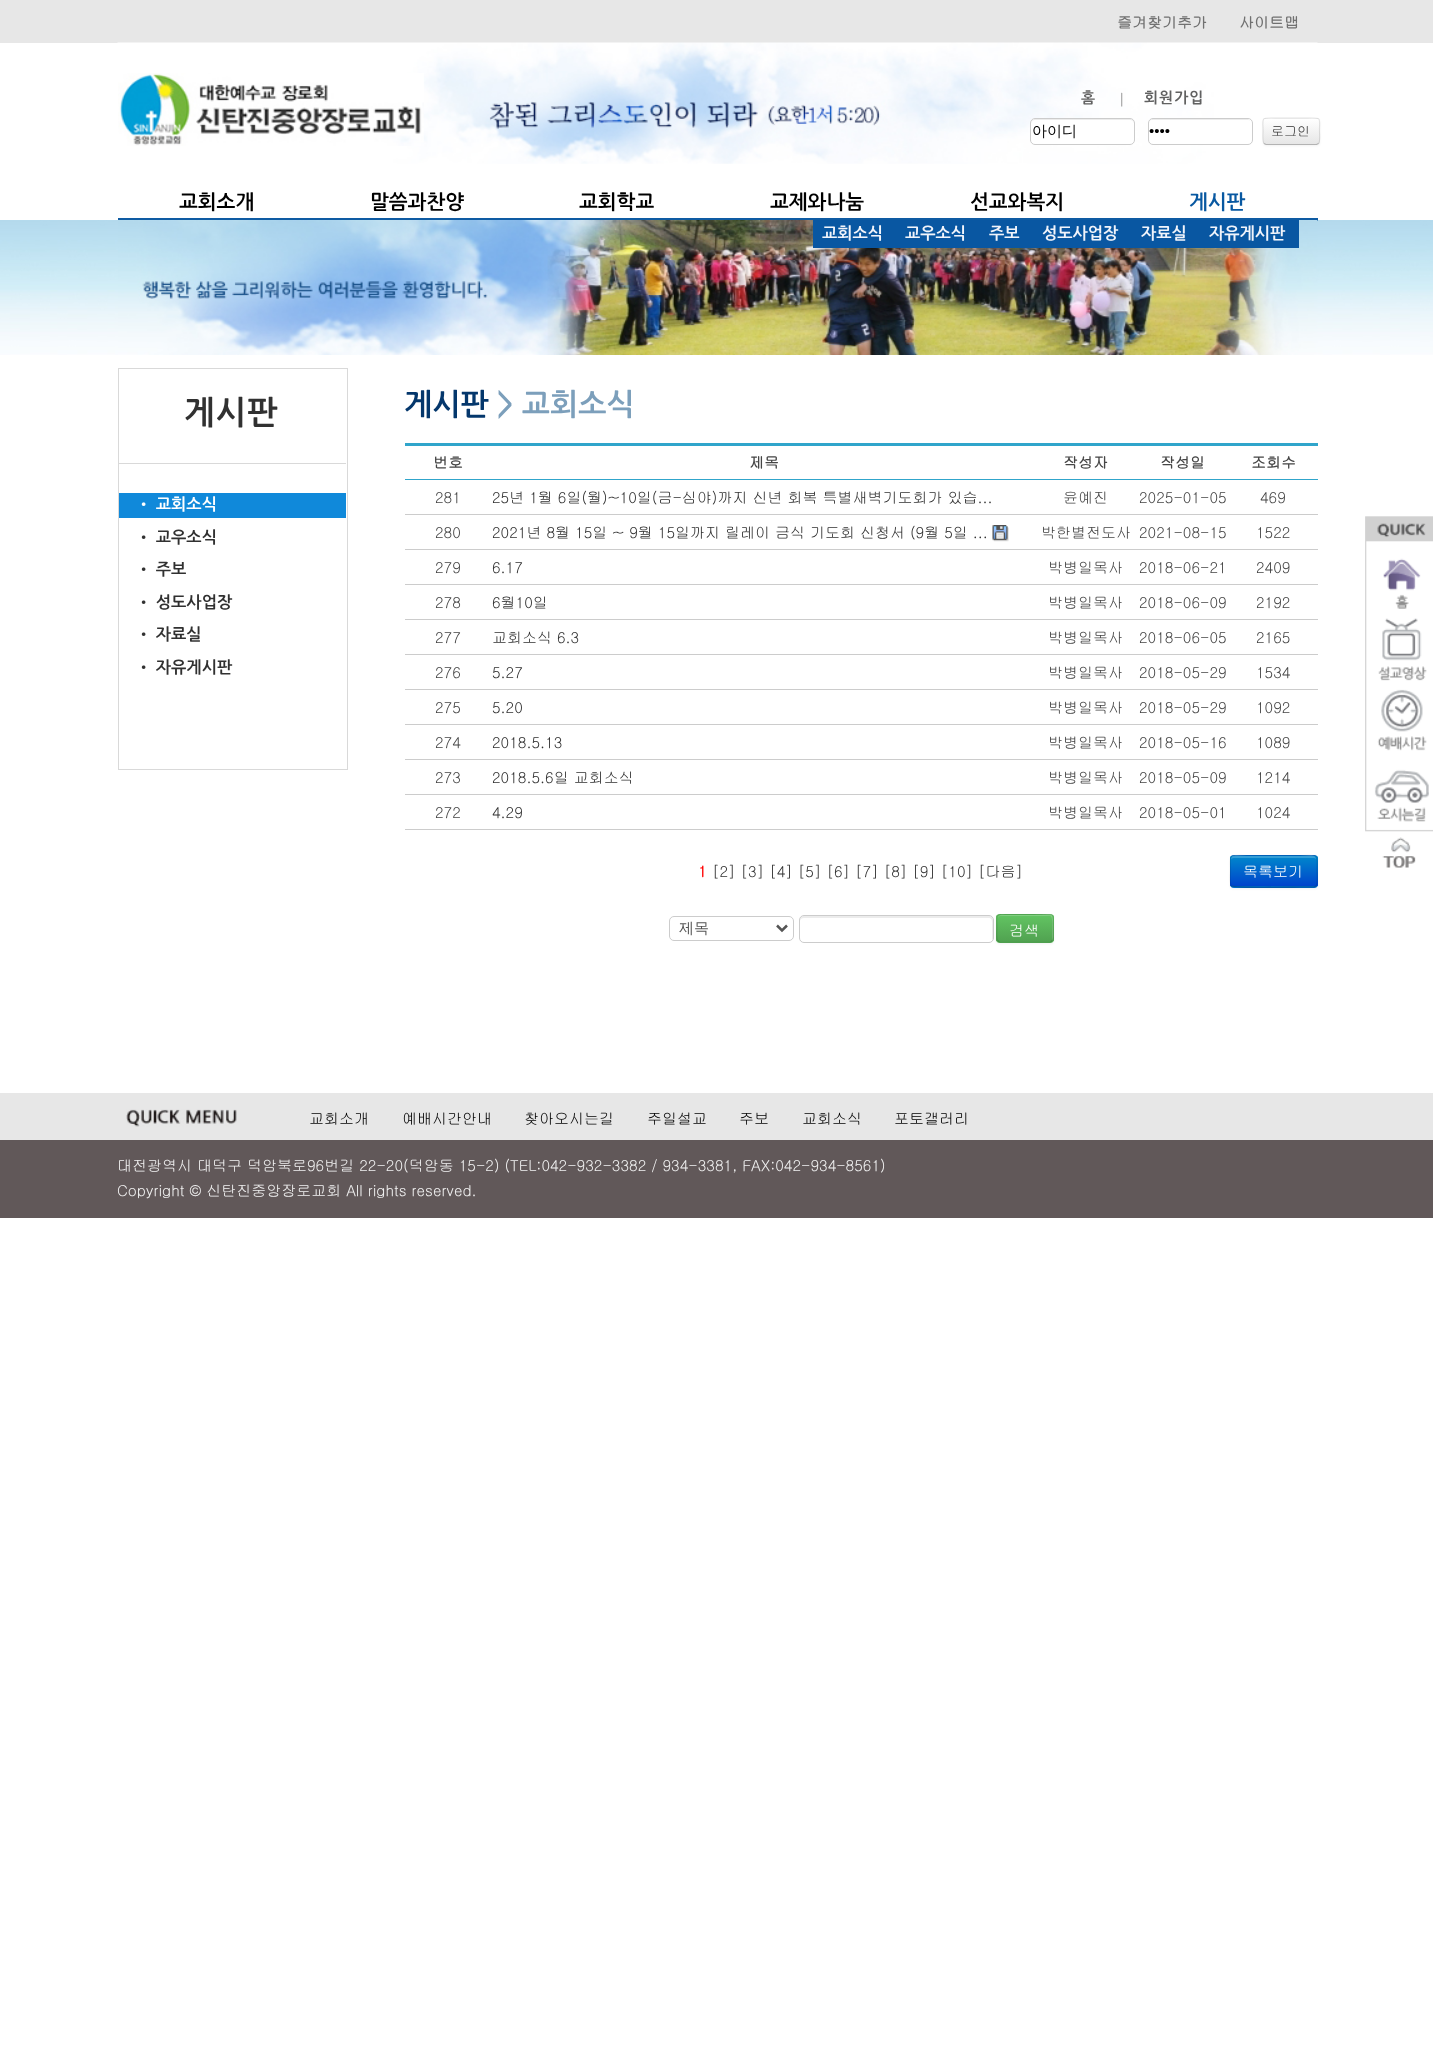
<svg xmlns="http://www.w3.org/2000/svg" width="1433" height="2060">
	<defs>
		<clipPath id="clip1"><rect x="1263" y="118" width="57" height="27" rx="4" /></clipPath>
		<linearGradient id="g1" gradientUnits="userSpaceOnUse" x1="1291" y1="119" x2="1291" y2="144"><stop offset="0" stop-color="#FFFFFF" /><stop offset="1" stop-color="#E6E6E6" /></linearGradient>
		<clipPath id="clip2"><rect x="1230" y="855" width="88" height="33" rx="4" /></clipPath>
		<linearGradient id="g2" gradientUnits="userSpaceOnUse" x1="1274" y1="856" x2="1274" y2="886"><stop offset="0" stop-color="#0088CC" /><stop offset="1" stop-color="#0044CC" /></linearGradient>
		<clipPath id="clip3"><rect x="996" y="914" width="58" height="29" rx="4" /></clipPath>
		<linearGradient id="g3" gradientUnits="userSpaceOnUse" x1="1025" y1="915" x2="1025" y2="941"><stop offset="0" stop-color="#62C462" /><stop offset="1" stop-color="#51A351" /></linearGradient>
	</defs>
	<rect width="100%" height="100%" fill="#FFFFFF" />
	<rect x="0" y="0" width="1433" height="43" fill="#E7E7E7" />
	<g font-family="Gulim" font-size="15" font-weight="700" fill="#717171">
		<text x="1117" y="28">즐겨찾기추가</text>
		<text x="1239" y="28">사이트맵</text>
	</g>
	<image x="117" y="42" width="1201" height="122" href="assets/img1.png" />
	<image x="118" y="73" width="306" height="73" href="assets/img2.png" />
	<text x="1081" y="103" font-family="NanumGothic" font-size="15" font-weight="700" letter-spacing="1" fill="#616161">홈</text>
	<text x="1118" y="105" font-family="Gulim" font-size="15" fill="#919191">|</text>
	<text x="1144" y="103" font-family="NanumGothic" font-size="15" font-weight="700" letter-spacing="1" fill="#616161">회원가입</text>
	<rect x="1030" y="118" width="105" height="27" rx="5" fill="#FFFFFF" />
	<path d="M1035 120H1130C1132 120 1134 122 1134 124C1134 115 1118 119 1114 119H1051C1047 119 1031 115 1031 124C1031 122 1033 120 1035 120Z" fill="#ECECEC" />
	<rect x="1030.5" y="118.5" width="104" height="26" rx="4.5" fill="none" stroke="#CCCCCC" />
	<text x="1032" y="136" font-family="WenQuanYi Zen Hei" font-size="15" font-weight="500" fill="#000000">아이디</text>
	<rect x="1148" y="118" width="105" height="27" rx="5" fill="#FFFFFF" />
	<path d="M1152 120H1248C1250 120 1251 122 1251 124C1251 115 1235 119 1231 119H1169C1165 119 1149 115 1149 124C1149 122 1150 120 1152 120Z" fill="#ECECEC" />
	<rect x="1148.5" y="118.5" width="104" height="26" rx="4.5" fill="none" stroke="#CCCCCC" />
	<text x="1149" y="136" font-family="Liberation Sans" font-size="15" fill="#000000">••••</text>
	<rect x="1263" y="119" width="57" height="27" rx="4" fill="#000000" fill-opacity="0.05" filter="blur(1px)" />
	<rect x="1263" y="118" width="57" height="27" rx="4" fill="#F5F5F5" />
	<g clip-path="url(#clip1)">
		<rect x="1263" y="119" width="57" height="25" fill="url(#g1)" />
	</g>
	<path d="M1266 120H1316C1318 120 1319 121 1319 122C1319 117 1311 119 1308 119H1275C1272 119 1264 117 1264 122C1264 121 1265 120 1266 120Z" fill="#FFFFFF" />
	<path d="M1318.5 143.5L1316.5 144.5H1266L1264 143.5" fill="none" stroke="#B3B3B3" stroke-width="1.2" />
	<path d="M1264 143.5C1262 141.5 1263 134 1263 131C1263 117 1260.5 118 1274.5 118H1308C1322 118 1319.5 117 1319.5 131C1319.5 134 1320.5 141.5 1318.5 143.5" fill="none" stroke="#000000" stroke-opacity="0.1" stroke-width="1.2" />
	<text x="1271" y="136" font-family="Gulim" font-size="13" fill="#313131">로그인</text>
	<g font-family="NanumGothic" font-size="20" font-weight="700" fill="#000000">
		<text x="179" y="209">교회소개</text>
		<text x="370" y="209">말씀과찬양</text>
		<text x="579" y="209">교회학교</text>
		<text x="770" y="209">교제와나눔</text>
	</g>
	<text x="1189" y="209" font-family="NanumGothic" font-size="20" font-weight="700" fill="#0858A1">게시판</text>
	<image x="0" y="220" width="1433" height="135" href="assets/img3.png" />
	<rect x="118" y="218" width="1200" height="3" fill="#0E5BA3" />
	<image x="118" y="220" width="1200" height="135" href="assets/img4.png" />
	<rect x="813" y="220" width="486" height="28" fill="#0957A2" />
	<g font-family="NanumGothic" font-size="16.25" font-weight="700" fill="#F1F4FB">
		<text x="822" y="239">교회소식</text>
		<text x="905" y="239">교우소식</text>
		<text x="989" y="239">주보</text>
		<text x="1042" y="239">성도사업장</text>
		<text x="1141" y="239">자료실</text>
		<text x="1209" y="239">자유게시판</text>
	</g>
	<text x="970" y="209" font-family="NanumGothic" font-size="20" font-weight="700" fill="#000000">선교와복지</text>
	<rect x="118.5" y="368.5" width="229" height="401" fill="none" stroke="#D9D9D9" />
	<rect x="119" y="463" width="227" height="1" fill="#D9D9D9" />
	<text x="184" y="424" font-family="NanumGothic" font-size="32.5" font-weight="700" letter-spacing="1" fill="#313131">게시판</text>
	<rect x="119" y="493" width="227" height="25" fill="#1089DA" />
	<text x="136" y="510" font-family="NanumGothic" font-size="16.25" font-weight="700" fill="#FFFFFF">• 교회소식</text>
	<g font-family="NanumGothic" font-size="16.25" font-weight="700" fill="#313131">
		<text x="136" y="543">• 교우소식</text>
		<text x="136" y="575">• 주보</text>
		<text x="136" y="608">• 성도사업장</text>
		<text x="136" y="640">• 자료실</text>
		<text x="136" y="673">• 자유게시판</text>
	</g>
	<text x="404" y="415" font-family="NanumGothic" font-size="30" font-weight="700" fill="#04376C">게시판</text>
	<text x="497" y="415" font-family="NanumGothic" font-size="30" font-weight="700" fill="#7C9FBB">&gt; 교회소식</text>
	<g font-family="Gulim" font-size="15" font-weight="700" fill="#454545">
		<text x="433" y="468">번호</text>
		<text x="749" y="468">제목</text>
		<text x="1063" y="468">작성자</text>
		<text x="1160" y="468">작성일</text>
	</g>
	<rect x="405" y="479" width="913" height="1" fill="#30A5CB" />
	<rect x="405" y="443" width="913" height="3" fill="#30A5CB" />
	<text x="1251" y="468" font-family="Gulim" font-size="15" font-weight="700" fill="#454545">조회수</text>
	<text x="435" y="503" font-family="Gulim" font-size="15" fill="#454545">281</text>
	<text x="492" y="503" font-family="Gulim" font-size="15" fill="#313131">25년 1월 6일(월)~10일(금-심야)까지 신년 회복 특별새벽기도회가 있습...</text>
	<g font-family="Gulim" font-size="15" fill="#454545">
		<text x="1063" y="503">윤예진</text>
		<text x="1139" y="503">2025-01-05</text>
	</g>
	<rect x="405" y="514" width="913" height="1" fill="#CCCCCC" />
	<g font-family="Gulim" font-size="15" fill="#454545">
		<text x="1260" y="503">469</text>
		<text x="435" y="538">280</text>
	</g>
	<text x="492" y="538" font-family="Gulim" font-size="15" fill="#313131">2021년 8월 15일 ~ 9월 15일까지 릴레이 금식 기도회 신청서 (9월 5일 ...</text>
	<image x="992" y="525" width="17" height="17" href="assets/img5.png" />
	<g font-family="Gulim" font-size="15" fill="#454545">
		<text x="1041" y="538">박한별전도사</text>
		<text x="1139" y="538">2021-08-15</text>
	</g>
	<rect x="405" y="549" width="913" height="1" fill="#CCCCCC" />
	<g font-family="Gulim" font-size="15" fill="#454545">
		<text x="1256" y="538">1522</text>
		<text x="435" y="573">279</text>
	</g>
	<text x="492" y="573" font-family="Gulim" font-size="15" fill="#313131">6.17</text>
	<g font-family="Gulim" font-size="15" fill="#454545">
		<text x="1048" y="573">박병일목사</text>
		<text x="1139" y="573">2018-06-21</text>
	</g>
	<rect x="405" y="584" width="913" height="1" fill="#CCCCCC" />
	<g font-family="Gulim" font-size="15" fill="#454545">
		<text x="1256" y="573">2409</text>
		<text x="435" y="608">278</text>
	</g>
	<text x="492" y="608" font-family="Gulim" font-size="15" fill="#313131">6월10일</text>
	<g font-family="Gulim" font-size="15" fill="#454545">
		<text x="1048" y="608">박병일목사</text>
		<text x="1139" y="608">2018-06-09</text>
	</g>
	<rect x="405" y="619" width="913" height="1" fill="#CCCCCC" />
	<g font-family="Gulim" font-size="15" fill="#454545">
		<text x="1256" y="608">2192</text>
		<text x="435" y="643">277</text>
	</g>
	<text x="492" y="643" font-family="Gulim" font-size="15" fill="#313131">교회소식 6.3</text>
	<g font-family="Gulim" font-size="15" fill="#454545">
		<text x="1048" y="643">박병일목사</text>
		<text x="1139" y="643">2018-06-05</text>
	</g>
	<rect x="405" y="654" width="913" height="1" fill="#CCCCCC" />
	<g font-family="Gulim" font-size="15" fill="#454545">
		<text x="1256" y="643">2165</text>
		<text x="435" y="678">276</text>
	</g>
	<text x="492" y="678" font-family="Gulim" font-size="15" fill="#313131">5.27</text>
	<g font-family="Gulim" font-size="15" fill="#454545">
		<text x="1048" y="678">박병일목사</text>
		<text x="1139" y="678">2018-05-29</text>
	</g>
	<rect x="405" y="689" width="913" height="1" fill="#CCCCCC" />
	<g font-family="Gulim" font-size="15" fill="#454545">
		<text x="1256" y="678">1534</text>
		<text x="435" y="713">275</text>
	</g>
	<text x="492" y="713" font-family="Gulim" font-size="15" fill="#313131">5.20</text>
	<g font-family="Gulim" font-size="15" fill="#454545">
		<text x="1048" y="713">박병일목사</text>
		<text x="1139" y="713">2018-05-29</text>
	</g>
	<rect x="405" y="724" width="913" height="1" fill="#CCCCCC" />
	<g font-family="Gulim" font-size="15" fill="#454545">
		<text x="1256" y="713">1092</text>
		<text x="435" y="748">274</text>
	</g>
	<text x="492" y="748" font-family="Gulim" font-size="15" fill="#313131">2018.5.13</text>
	<g font-family="Gulim" font-size="15" fill="#454545">
		<text x="1048" y="748">박병일목사</text>
		<text x="1139" y="748">2018-05-16</text>
	</g>
	<rect x="405" y="759" width="913" height="1" fill="#CCCCCC" />
	<g font-family="Gulim" font-size="15" fill="#454545">
		<text x="1256" y="748">1089</text>
		<text x="435" y="783">273</text>
	</g>
	<text x="492" y="783" font-family="Gulim" font-size="15" fill="#313131">2018.5.6일 교회소식</text>
	<g font-family="Gulim" font-size="15" fill="#454545">
		<text x="1048" y="783">박병일목사</text>
		<text x="1139" y="783">2018-05-09</text>
	</g>
	<rect x="405" y="794" width="913" height="1" fill="#CCCCCC" />
	<g font-family="Gulim" font-size="15" fill="#454545">
		<text x="1256" y="783">1214</text>
		<text x="435" y="818">272</text>
	</g>
	<text x="492" y="818" font-family="Gulim" font-size="15" fill="#313131">4.29</text>
	<g font-family="Gulim" font-size="15" fill="#454545">
		<text x="1048" y="818">박병일목사</text>
		<text x="1139" y="818">2018-05-01</text>
	</g>
	<rect x="405" y="829" width="913" height="1" fill="#CCCCCC" />
	<text x="1256" y="818" font-family="Gulim" font-size="15" fill="#454545">1024</text>
	<text x="698" y="877" font-family="Gulim" font-size="15" font-weight="700" fill="#FF0000">1</text>
	<text x="712" y="877" font-family="Gulim" font-size="15" fill="#313131">[2] [3] [4] [5] [6] [7] [8] [9] [10] [다음]</text>
	<rect x="1230" y="856" width="88" height="33" rx="4" fill="#000000" fill-opacity="0.05" filter="blur(1px)" />
	<rect x="1230" y="855" width="88" height="33" rx="4" fill="#006DCC" />
	<g clip-path="url(#clip2)">
		<rect x="1230" y="856" width="88" height="30" fill="url(#g2)" />
	</g>
	<path d="M1234 858H1314C1315 858 1316 859 1316 860C1316 852 1306 856 1300 856H1247C1241 856 1231 852 1231 860C1231 859 1232 858 1234 858Z" fill="#FFFFFF" fill-opacity="0.2" />
	<path d="M1316 886L1314 887H1300.5C1293 887 1234 888 1232 886H1231.5" fill="none" stroke="#005299" stroke-width="1.2" />
	<path d="M1231.5 886C1229.5 884 1230.5 874 1230.5 871C1230.5 852.5 1227.5 855.5 1247 855.5H1300.5C1320 855.5 1317 852.5 1317 871C1317 874 1318 884 1316 886" fill="none" stroke="#000000" stroke-opacity="0.1" stroke-width="1.2" />
	<text x="1243" y="877" font-family="Gulim" font-size="15" fill="#FFFFFF">목록보기</text>
	<rect x="669.5" y="916.5" width="124" height="24" rx="4.5" fill="none" stroke="#CCCCCC" />
	<path d="M777 925.5L782 930.5L787 925.5" fill="none" stroke="#555555" stroke-width="2.5" />
	<text x="679" y="933" font-family="WenQuanYi Zen Hei" font-size="15" font-weight="500" fill="#555555">제목</text>
	<path d="M804 918H989C993 918 992 924 992 927V940C993 939 993 938 993 937V920C993 918 991 916 989 916H804C802 916 800 918 800 920V921C800 919 802 918 804 918Z" fill="#ECECEC" />
	<rect x="799.5" y="915.5" width="194" height="27" rx="4.5" fill="none" stroke="#CCCCCC" />
	<rect x="996" y="915" width="58" height="29" rx="4" fill="#000000" fill-opacity="0.05" filter="blur(1px)" />
	<rect x="996" y="914" width="58" height="29" rx="4" fill="#5BB75B" />
	<g clip-path="url(#clip3)">
		<rect x="996" y="915" width="58" height="26" fill="url(#g3)" />
	</g>
	<path d="M1000 916H1050C1053 916 1052 925 1052 926V941C1054 939 1053 930 1053 928C1053 910 1055 915 1034 915H1009C1003 915 998 913 998 919C998 917 999 916 1000 916Z" fill="#FFFFFF" fill-opacity="0.2" />
	<path d="M1052 941L1050.5 942H999.5L998 941" fill="none" stroke="#000000" stroke-opacity="0.25" stroke-width="1.2" />
	<path d="M998 941C996 939 997 930.5 997 928C997 913.5 994 914.5 1008.5 914.5H1041.5C1056 914.5 1053 913.5 1053 928C1053 930.5 1054 939 1052 941" fill="none" stroke="#000000" stroke-opacity="0.1" stroke-width="1.2" />
	<text x="1009" y="936" font-family="Gulim" font-size="15" fill="#FFFFFF">검색</text>
	<image x="1365" y="516" width="68" height="352" href="assets/img6.png" />
	<rect x="0" y="1093" width="1433" height="47" fill="#E7E7E7" />
	<image x="126" y="1109" width="111" height="18" href="assets/img7.png" />
	<g font-family="Gulim" font-size="15" fill="#000000">
		<text x="309" y="1124">교회소개</text>
		<text x="402" y="1124">예배시간안내</text>
		<text x="524" y="1124">찾아오시는길</text>
		<text x="647" y="1124">주일설교</text>
		<text x="739" y="1124">주보</text>
		<text x="802" y="1124">교회소식</text>
		<text x="894" y="1124">포토갤러리</text>
	</g>
	<rect x="0" y="1140" width="1433" height="78" fill="#615859" />
	<g font-family="Gulim" font-size="15" fill="#F1F1F1">
		<text x="117" y="1171">대전광역시 대덕구 덕암북로96번길 22-20(덕암동 15-2) (TEL:042-932-3382 / 934-3381, FAX:042-934-8561)</text>
		<text x="117" y="1196">Copyright © 신탄진중앙장로교회 All rights reserved.</text>
	</g>
</svg>
